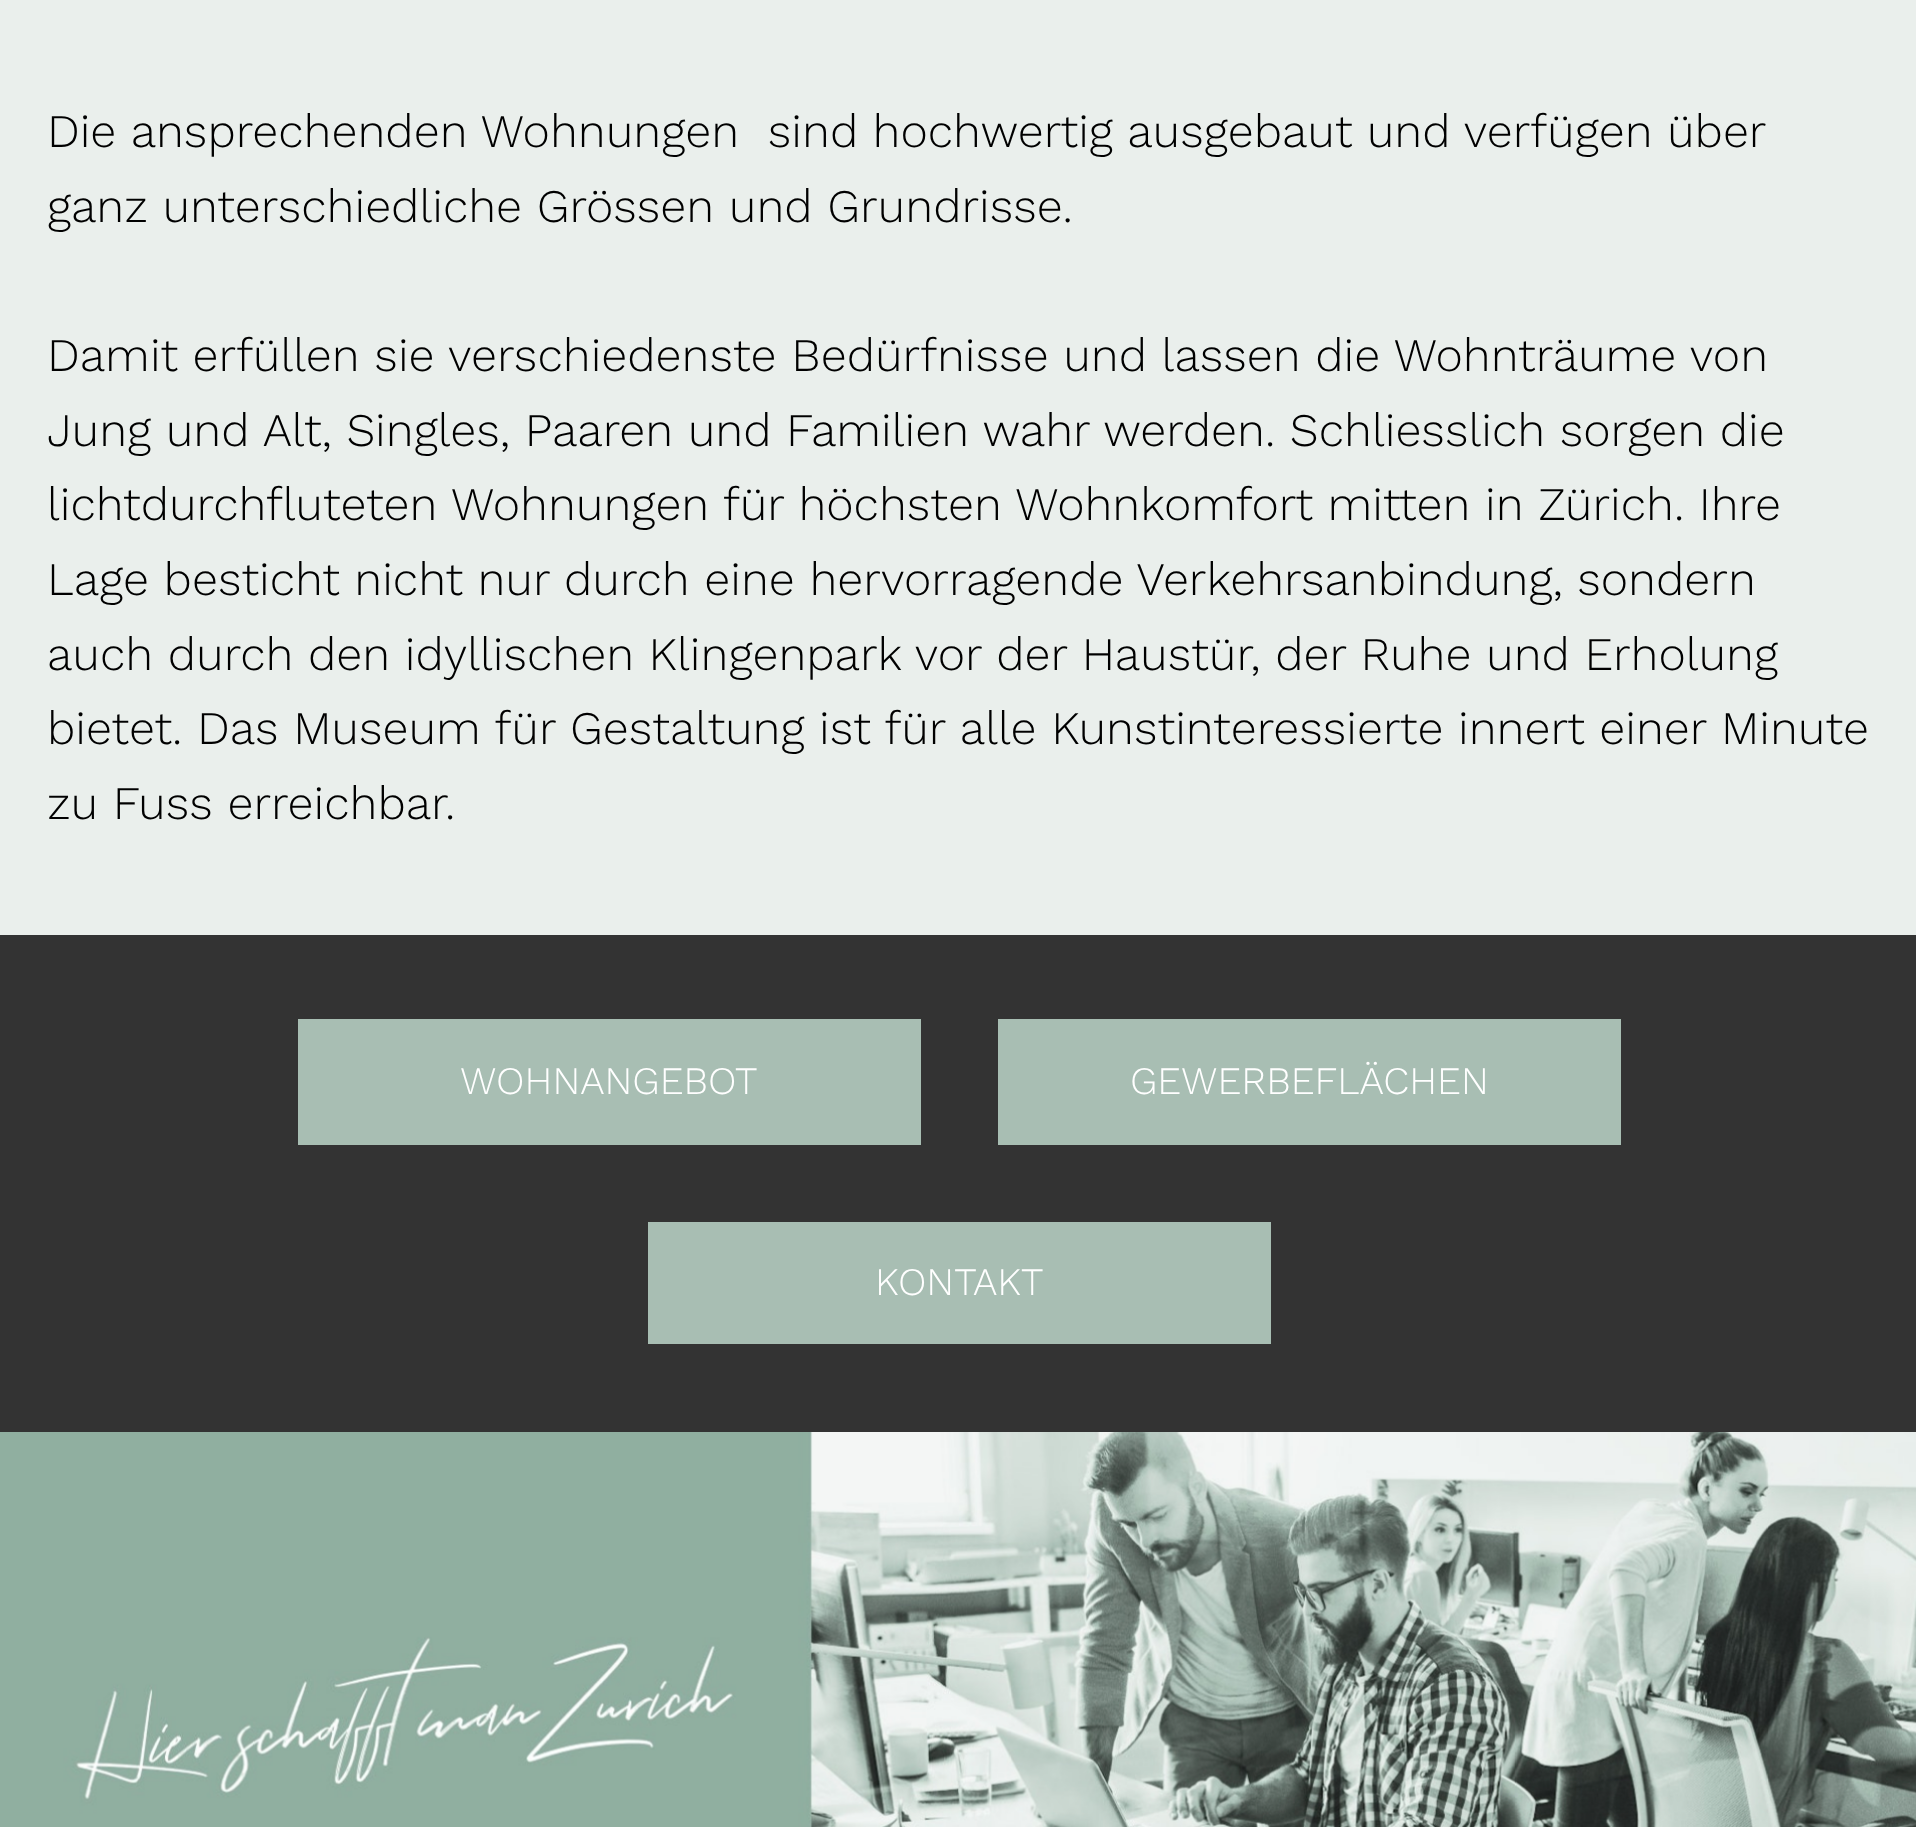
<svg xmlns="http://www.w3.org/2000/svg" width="1916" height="1827">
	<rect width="100%" height="100%" fill="#EAEFEC" />
	<g font-family="Work Sans" font-size="46.65" font-weight="300" fill="#000000">
		<text x="47" y="147" word-spacing="-0.25" xml:space="preserve">Die ansprechenden Wohnungen  sind hochwertig ausgebaut und verfügen über</text>
		<text x="47" y="222">ganz unterschiedliche Grössen und Grundrisse.</text>
		<text x="47" y="371">Damit erfüllen sie verschiedenste Bedürfnisse und lassen die Wohnträume von</text>
		<text x="47" y="446">Jung und Alt, Singles, Paaren und Familien wahr werden. Schliesslich sorgen die</text>
		<text x="47" y="520">lichtdurchfluteten Wohnungen für höchsten Wohnkomfort mitten in Zürich. Ihre</text>
		<text x="47" y="595">Lage besticht nicht nur durch eine hervorragende Verkehrsanbindung, sondern</text>
		<text x="47" y="670">auch durch den idyllischen Klingenpark vor der Haustür, der Ruhe und Erholung</text>
		<text x="47" y="744">bietet. Das Museum für Gestaltung ist für alle Kunstinteressierte innert einer Minute</text>
		<text x="47" y="819">zu Fuss erreichbar.</text>
	</g>
	<rect x="0" y="935" width="1916" height="497" fill="#333333" />
	<rect x="298" y="1019" width="623" height="126" fill="#A8BEB3" />
	<text x="460" y="1094" font-family="Work Sans" font-size="38.9" font-weight="300" fill="#FFFFFF">WOHNANGEBOT</text>
	<rect x="998" y="1019" width="623" height="126" fill="#A8BEB3" />
	<text x="1130" y="1094" font-family="Work Sans" font-size="38.9" font-weight="300" fill="#FFFFFF">GEWERBEFLÄCHEN</text>
	<rect x="648" y="1222" width="623" height="122" fill="#A8BEB3" />
	<text x="875" y="1295" font-family="Work Sans" font-size="38.9" font-weight="300" fill="#FFFFFF">KONTAKT</text>
	<image x="0" y="1432" width="1916" height="395" href="assets/img1.png" />
</svg>
